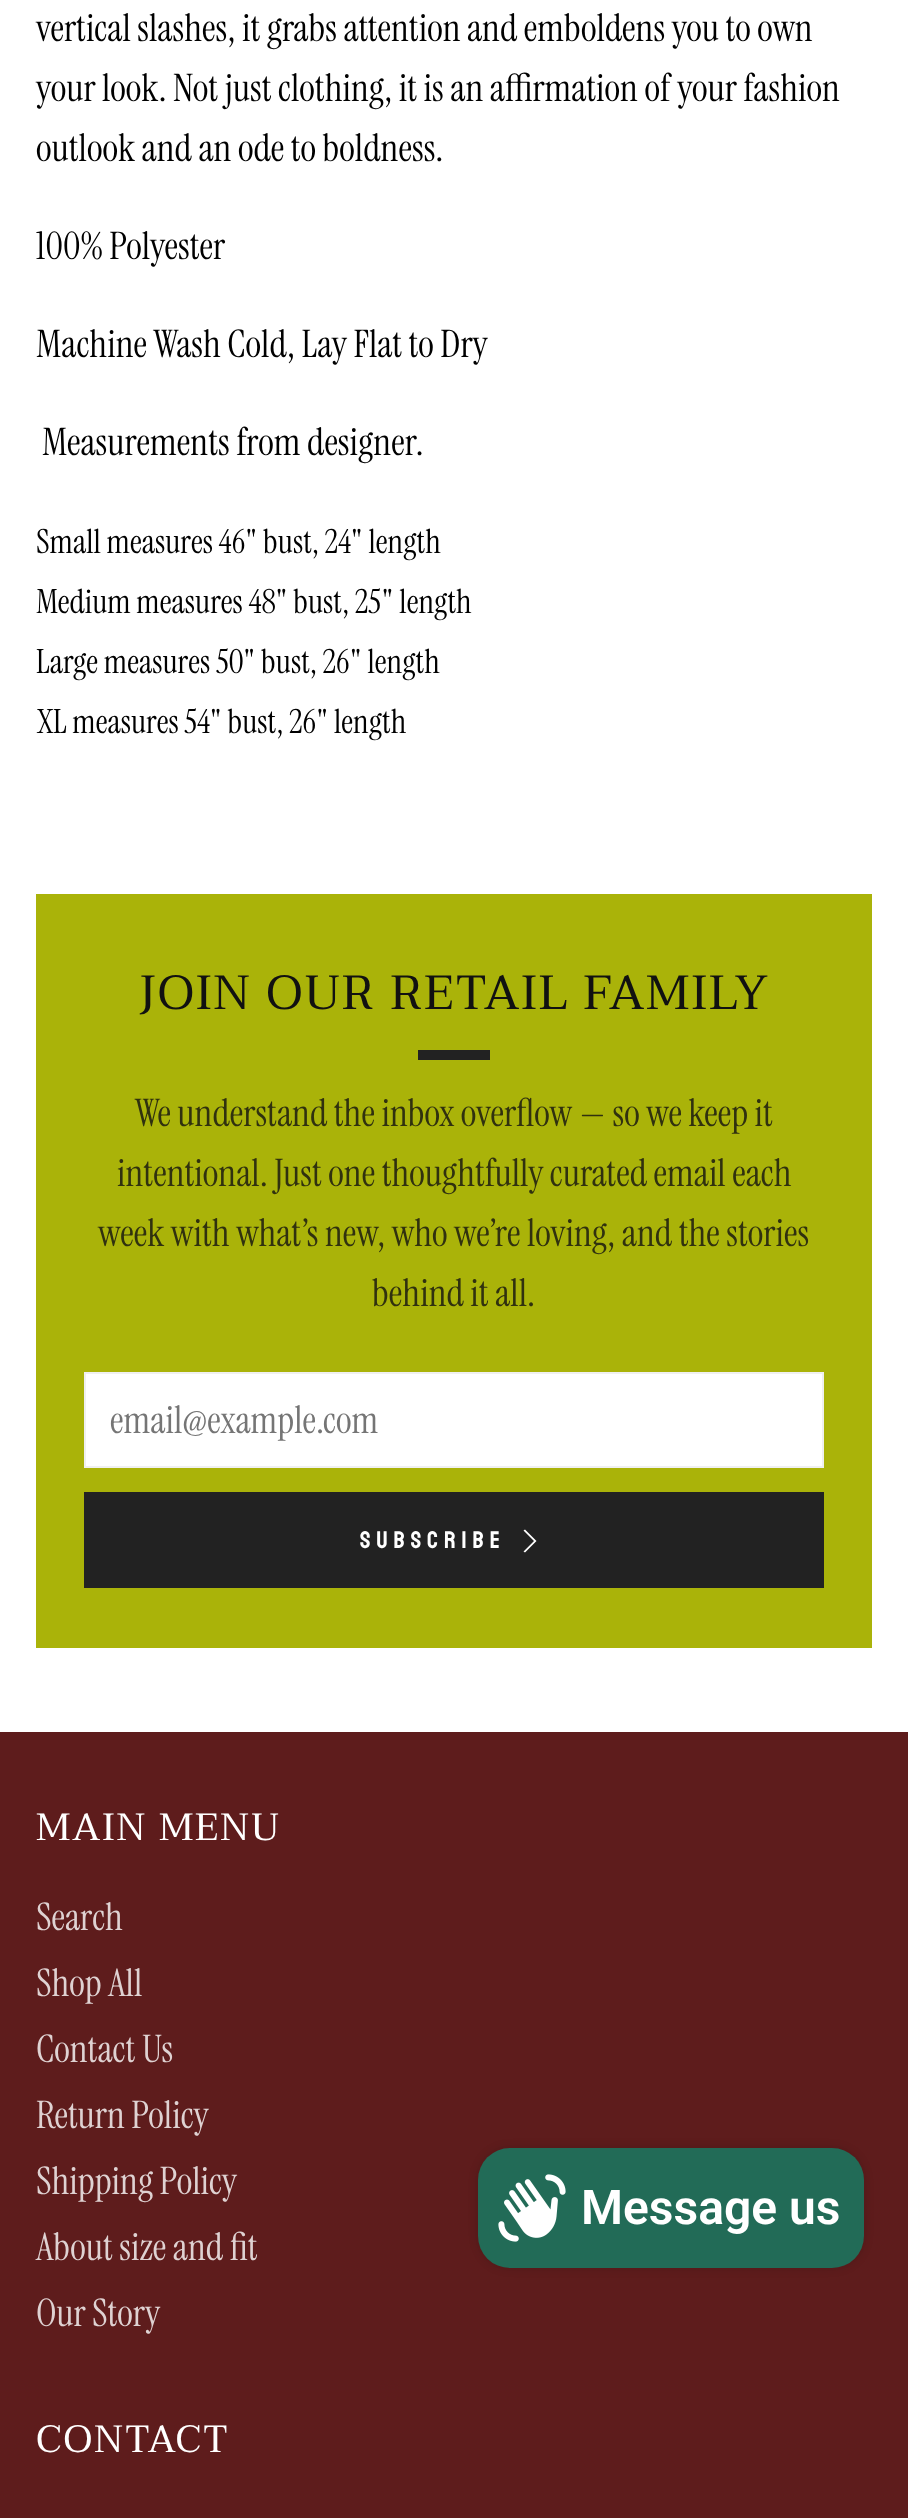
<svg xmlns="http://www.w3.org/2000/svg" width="908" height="2518">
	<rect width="100%" height="100%" fill="#FFFFFF" />
	<g font-family="Instrument Serif" font-size="38" fill="#000000">
		<text x="36" y="41">vertical slashes, it grabs attention and emboldens you to own</text>
		<text x="36" y="101">your look. Not just clothing, it is an affirmation of your fashion</text>
		<text x="36" y="161">outlook and an ode to boldness.</text>
		<text x="36" y="259">100% Polyester</text>
		<text x="36" y="357">Machine Wash Cold, Lay Flat to Dry</text>
		<text x="42" y="455">Measurements from designer.</text>
	</g>
	<g font-family="Instrument Serif" font-size="33.25" fill="#000000">
		<text x="36" y="553">Small measures 46" bust, 24" length</text>
		<text x="36" y="613">Medium measures 48" bust, 25" length</text>
		<text x="36" y="673">Large measures 50" bust, 26" length</text>
		<text x="36" y="733">XL measures 54" bust, 26" length</text>
	</g>
	<rect x="36" y="894" width="836" height="754" fill="#AAB309" />
	<text x="138" y="1009" font-family="Taviraj" font-size="48" letter-spacing="2" fill="#111111">JOIN OUR RETAIL FAMILY</text>
	<rect x="418" y="1050" width="72" height="10" fill="#222222" />
	<g font-family="Instrument Serif" font-size="38" fill="#30310F">
		<text x="135" y="1126">We understand the inbox overflow — so we keep it</text>
		<text x="117" y="1186">intentional. Just one thoughtfully curated email each</text>
		<text x="98" y="1246">week with what’s new, who we’re loving, and the stories</text>
		<text x="372" y="1306">behind it all.</text>
	</g>
	<rect x="85" y="1373" width="738" height="94" fill="#FFFFFF" stroke="#F0F0F0" stroke-width="2" />
	<text x="110" y="1433" font-family="Instrument Serif" font-size="38" fill="#757575">email@example.com</text>
	<rect x="84" y="1492" width="740" height="96" fill="#222222" />
	<text x="360" y="1548" font-family="Bayon" font-size="24" letter-spacing="6" fill="#FFFFFF">Subscribe</text>
	<path d="M523.5 1551.5L525 1552.5L536.5 1541L525 1529.5L523.5 1530.5L534 1541Z" fill="#FFFFFF" />
	<rect x="0" y="1732" width="908" height="786" fill="#5E1C1C" />
	<text x="36" y="1840" font-family="Taviraj" font-size="38" letter-spacing="2" fill="#FFFFFF">MAIN MENU</text>
	<g font-family="Instrument Serif" font-size="38" fill="#DFD2D2">
		<text x="36" y="1930">Search</text>
		<text x="36" y="1996">Shop All</text>
		<text x="36" y="2062">Contact Us</text>
		<text x="36" y="2128">Return Policy</text>
		<text x="36" y="2194">Shipping Policy</text>
		<text x="36" y="2260">About size and fit</text>
		<text x="36" y="2326">Our Story</text>
	</g>
	<text x="36" y="2452" font-family="Taviraj" font-size="38" letter-spacing="2" fill="#FFFFFF">CONTACT</text>
	<rect x="478" y="2148" width="386" height="120" rx="32" fill="#000000" fill-opacity="0.15" filter="blur(5px)" />
	<rect x="478" y="2148" width="386" height="120" rx="32" fill="#226B57" />
	<image x="498" y="2174" width="68" height="68" href="assets/img1.png" />
	<text x="581" y="2224" font-family="Roboto" font-size="48" font-weight="600" fill="#FFFFFF">Message us</text>
</svg>
